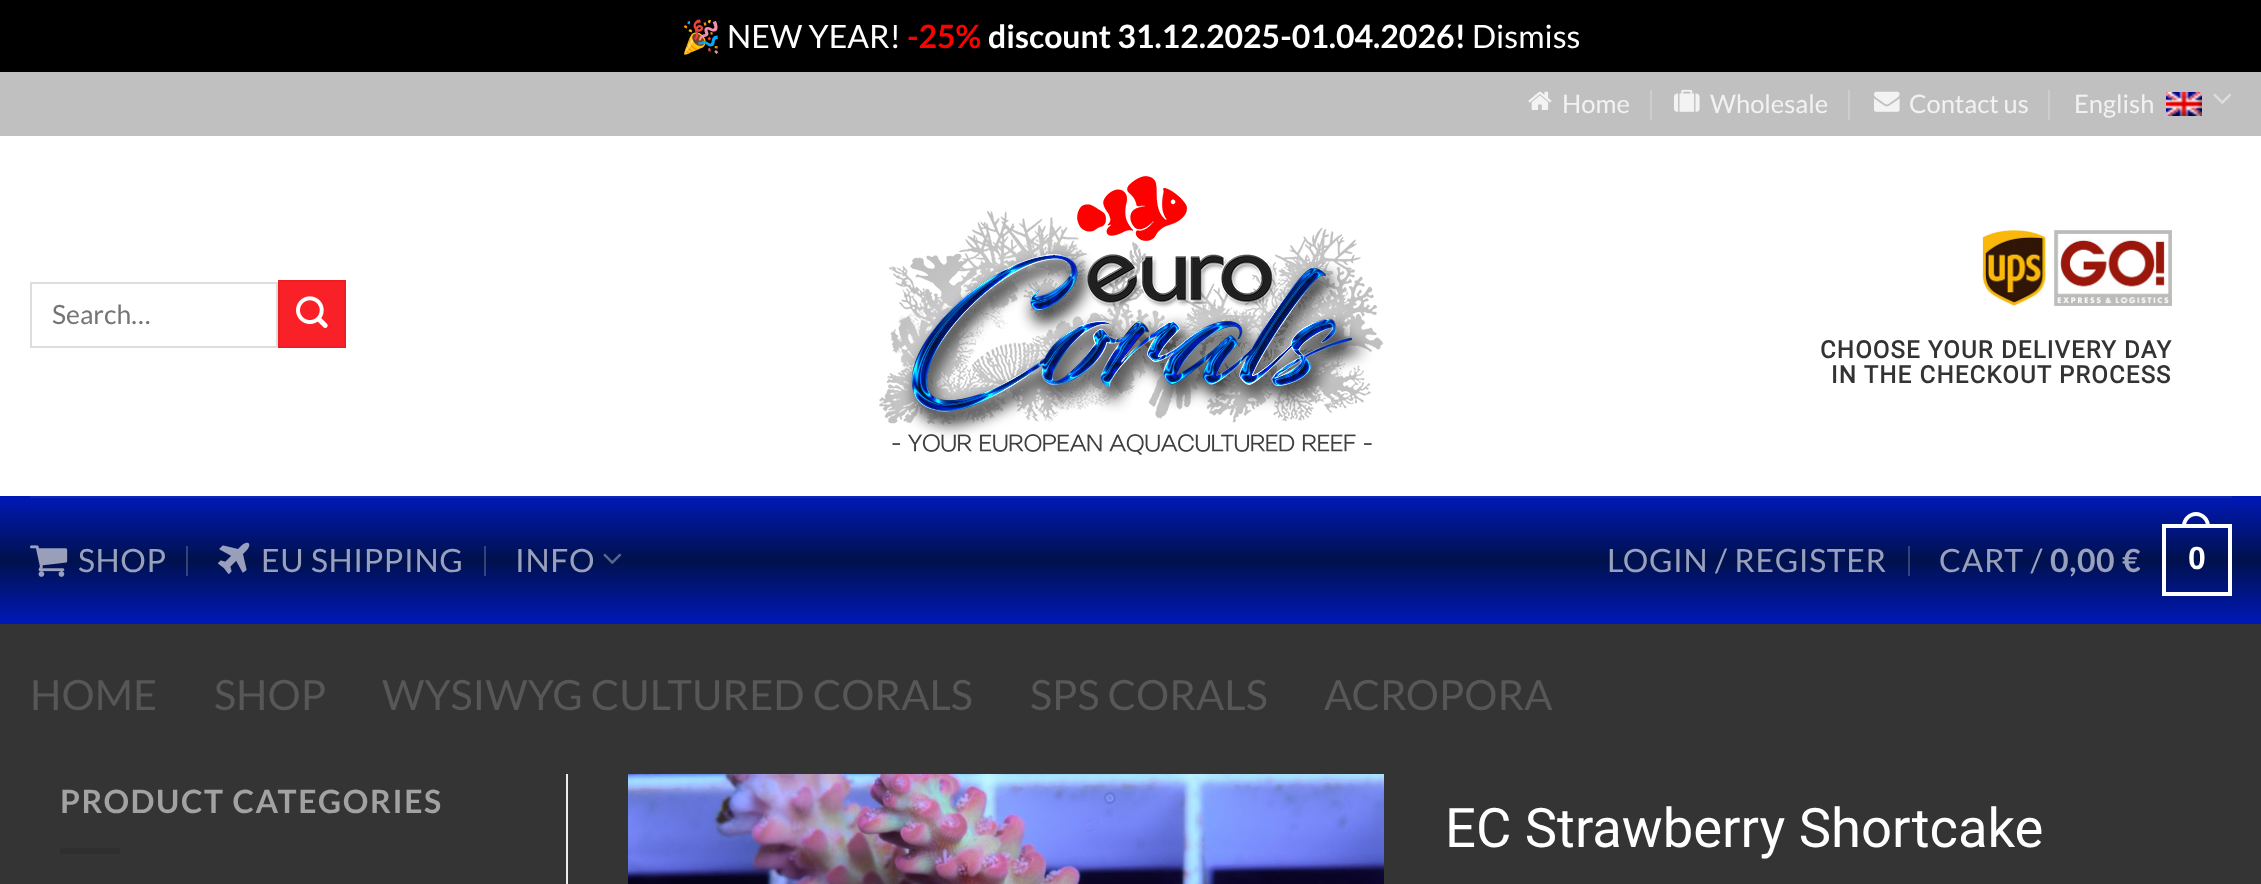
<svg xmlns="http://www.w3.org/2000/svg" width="2261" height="884">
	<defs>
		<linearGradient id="g1" gradientUnits="userSpaceOnUse" x1="1131" y1="496" x2="1131" y2="624"><stop offset="0" stop-color="#0019B8" /><stop offset="0.5" stop-color="#00114D" /><stop offset="1" stop-color="#0019B8" /></linearGradient>
		<linearGradient id="g2" gradientUnits="userSpaceOnUse" x1="1131" y1="496" x2="1131" y2="624"><stop offset="0" stop-color="#3347C6" /><stop offset="0.5" stop-color="#334171" /><stop offset="1" stop-color="#3347C6" /></linearGradient>
	</defs>
	<rect width="100%" height="100%" fill="#000000" />
	<text x="681" y="48" font-family="Noto Color Emoji" font-size="32" fill="#FFFFFF">🎉</text>
	<text x="727" y="48" font-family="Lato" font-size="32" fill="#FFFFFF">NEW YEAR!</text>
	<text x="907" y="48" font-family="Lato" font-size="32" font-weight="700" fill="#FF0000">-25%</text>
	<text x="988" y="48" font-family="Lato" font-size="32" font-weight="700" fill="#FFFFFF">discount 31.12.2025-01.04.2026!</text>
	<text x="1472" y="48" font-family="Lato" font-size="32" fill="#FFFFFF">Dismiss</text>
	<rect x="0" y="624" width="2261" height="260" fill="#343434" />
	<rect x="0" y="136" width="2261" height="360" fill="#FFFFFF" />
	<rect x="0" y="72" width="2261" height="64" fill="#C0C0C0" />
	<image x="1528" y="91" width="24" height="19" href="assets/img1.png" />
	<text x="1562" y="113" font-family="Lato" font-size="25.5" fill="#F2F2F2">Home</text>
	<rect x="1650" y="90" width="2" height="30" fill="#CDCDCD" />
	<image x="1674" y="89" width="26" height="23" href="assets/img2.png" />
	<text x="1710" y="113" font-family="Lato" font-size="25.5" fill="#F2F2F2">Wholesale</text>
	<rect x="1848" y="90" width="2" height="30" fill="#CDCDCD" />
	<image x="1874" y="91" width="26" height="21" href="assets/img3.png" />
	<text x="1909" y="113" font-family="Lato" font-size="25.5" fill="#F2F2F2">Contact us</text>
	<rect x="2048" y="90" width="2" height="30" fill="#CDCDCD" />
	<text x="2074" y="113" font-family="Lato" font-size="25.5" fill="#F2F2F2">English</text>
	<image x="2166" y="92" width="36" height="24" href="assets/img4.png" />
	<image x="2213" y="93" width="18" height="11" href="assets/img5.png" />
	<rect x="31" y="283" width="246" height="64" fill="none" stroke="#DDDDDD" stroke-width="2" />
	<text x="52" y="324" font-family="Lato" font-size="26.5" fill="#757575">Search…</text>
	<rect x="279" y="281" width="66" height="66" fill="#FA2027" stroke="#EE1E25" stroke-width="2" />
	<image x="296" y="296" width="32" height="32" href="assets/img6.png" />
	<image x="879" y="176" width="505" height="279" href="assets/img7.png" />
	<image x="1982" y="230" width="190" height="76" href="assets/img8.png" />
	<g font-family="Roboto" font-size="24" font-weight="700" letter-spacing="1.2" fill="#333333">
		<text x="1820" y="358">CHOOSE YOUR DELIVERY DAY</text>
		<text x="1831" y="383">IN THE CHECKOUT PROCESS</text>
	</g>
	<rect x="0" y="496" width="2261" height="128" fill="url(#g1)" />
	<rect x="30" y="496" width="2202" height="2" fill="#1027B4" />
	<rect x="1908" y="546" width="2" height="30" fill="url(#g2)" />
	<rect x="484" y="546" width="2" height="30" fill="url(#g2)" />
	<rect x="186" y="546" width="2" height="30" fill="url(#g2)" />
	<image x="30" y="545" width="38" height="32" href="assets/img9.png" />
	<text x="78" y="572" font-family="Lato" font-size="32" letter-spacing="0.6" fill="#99A0BC">SHOP</text>
	<image x="218" y="542" width="32" height="32" href="assets/img10.png" />
	<g font-family="Lato" font-size="32" letter-spacing="0.6" fill="#99A0BC">
		<text x="261" y="572">EU SHIPPING</text>
		<text x="515" y="572">INFO</text>
	</g>
	<image x="603" y="553" width="19" height="11" href="assets/img11.png" />
	<g font-family="Lato" font-size="32" letter-spacing="0.6" fill="#99A0BC">
		<text x="1607" y="572">LOGIN / REGISTER</text>
		<text x="1939" y="572">CART /</text>
	</g>
	<text x="2050" y="572" font-family="Lato" font-size="32" font-weight="700" letter-spacing="0.6" fill="#99A0BC">0,00 €</text>
	<rect x="2164" y="526" width="66" height="68" fill="none" stroke="#FFFFFF" stroke-width="4" />
	<path d="M2196 512C2203.5 512 2210 518.5 2210 526V528H2182V526C2182 518.5 2188.5 512 2196 512ZM2196 516C2201.5 516 2206 520.5 2206 526V528H2186V526C2186 520.5 2190.5 516 2196 516Z" fill="#FFFFFF" fill-rule="evenodd" />
	<text x="2188" y="569" font-family="Liberation Sans" font-size="32" font-weight="700" letter-spacing="0.6" fill="#FFFFFF">0</text>
	<g font-family="Lato" font-size="41.6" fill="#575757">
		<text x="30" y="710">HOME</text>
		<text x="214" y="710">SHOP</text>
		<text x="382" y="710">WYSIWYG CULTURED CORALS</text>
		<text x="1030" y="710">SPS CORALS</text>
		<text x="1324" y="710">ACROPORA</text>
	</g>
	<text x="60" y="813" font-family="Lato" font-size="32" font-weight="700" letter-spacing="1.6" fill="#A2A2A2">PRODUCT CATEGORIES</text>
	<rect x="60" y="848" width="60" height="6" fill="#2F2F2F" />
	<rect x="566" y="774" width="2" height="110" fill="#ECECEC" />
	<image x="628" y="774" width="756" height="110" href="assets/img12.png" />
	<text x="1445" y="847" font-family="Roboto" font-size="54.4" fill="#FFFFFF">EC Strawberry Shortcake</text>
</svg>
